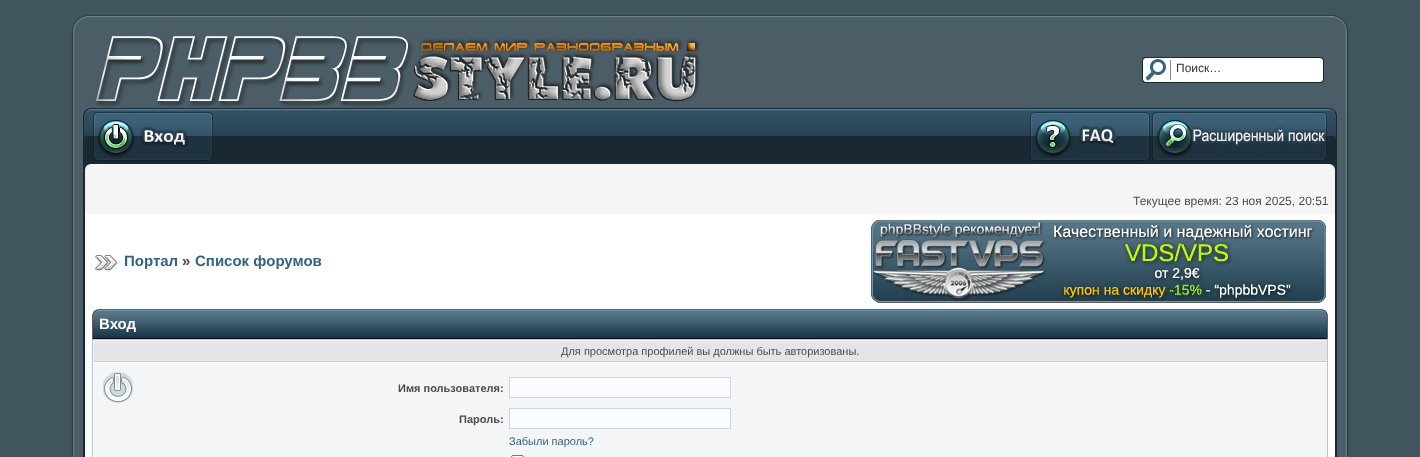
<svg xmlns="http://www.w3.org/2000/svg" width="1420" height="457">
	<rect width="100%" height="100%" fill="#41555F" />
	<rect x="75" y="18" width="1270" height="90" fill="#4B5E67" />
	<image x="70" y="14" width="22" height="17" href="assets/img1.png" />
	<image x="92" y="14" width="1236" height="4" href="assets/img2.png" />
	<image x="1328" y="14" width="22" height="17" href="assets/img3.png" />
	<image x="70" y="31" width="5" height="77" href="assets/img4.png" />
	<image x="95" y="36" width="605" height="71" href="assets/img5.png" />
	<image x="1142" y="57" width="182" height="26" href="assets/img6.png" />
	<text x="1176" y="72" font-family="Liberation Sans" font-size="12" fill="#323232">Поиск…</text>
	<image x="1345" y="31" width="5" height="77" href="assets/img7.png" />
	<image x="70" y="108" width="22" height="56" href="assets/img8.png" />
	<image x="214" y="108" width="815" height="56" href="assets/img9.png" />
	<image x="92" y="108" width="122" height="56" href="assets/img10.png" />
	<image x="1029" y="108" width="122" height="56" href="assets/img11.png" />
	<image x="1151" y="108" width="177" height="56" href="assets/img12.png" />
	<image x="1328" y="108" width="22" height="56" href="assets/img13.png" />
	<rect x="91" y="164" width="1238" height="6" fill="#F5F5F5" />
	<image x="70" y="164" width="21" height="6" href="assets/img14.png" />
	<image x="1329" y="164" width="21" height="6" href="assets/img15.png" />
	<rect x="86" y="170" width="1248" height="44" fill="#F5F5F5" />
	<image x="70" y="170" width="16" height="44" href="assets/img16.png" />
	<image x="1334" y="170" width="16" height="44" href="assets/img17.png" />
	<text x="1133" y="205" font-family="Liberation Sans" font-size="12" fill="#4B4B4B">Текущее время: 23 ноя 2025, 20:51</text>
	<image x="70" y="214" width="22" height="243" href="assets/img18.png" />
	<rect x="92" y="214" width="1236" height="95" fill="#FFFFFF" />
	<image x="95" y="255" width="22" height="17" href="assets/img19.png" />
	<text x="124" y="266" font-family="Liberation Sans" font-size="15" font-weight="700" fill="#32647D">Портал</text>
	<text x="182" y="266" font-family="Liberation Sans" font-size="15" font-weight="700" fill="#4B4B4B">»</text>
	<text x="195" y="266" font-family="Liberation Sans" font-size="15" font-weight="700" fill="#32647D">Список форумов</text>
	<image x="871" y="220" width="455" height="83" href="assets/img20.png" />
	<image x="98" y="309" width="1224" height="30" href="assets/img21.png" />
	<image x="92" y="309" width="6" height="30" href="assets/img22.png" />
	<image x="1322" y="309" width="6" height="30" href="assets/img23.png" />
	<text x="99" y="329" font-family="Liberation Sans" font-size="15" font-weight="700" fill="#FFFFFF">Вход</text>
	<rect x="92.5" y="339.5" width="1235" height="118" fill="none" stroke="#AFC8D2" />
	<rect x="94" y="341" width="1233" height="20" fill="#E3E5E7" />
	<rect x="93" y="340" width="1234" height="1" fill="#F1F3F5" />
	<rect x="93" y="361" width="1234" height="1" fill="#CCCECF" />
	<rect x="93" y="340" width="1" height="22" fill="#F1F3F5" />
	<text x="561" y="355" font-family="Liberation Sans" font-size="11" fill="#4B4B4B">Для просмотра профилей вы должны быть авторизованы.</text>
	<rect x="94" y="363" width="1233" height="94" fill="#F3F5F7" />
	<rect x="93" y="362" width="1234" height="1" fill="#FFFFFF" />
	<rect x="93" y="362" width="1" height="95" fill="#FFFFFF" />
	<image x="103" y="372" width="30" height="31" href="assets/img24.png" />
	<text x="398" y="392" font-family="Liberation Sans" font-size="11" font-weight="700" fill="#4B4B4B">Имя пользователя:</text>
	<rect x="509.5" y="377.5" width="221" height="20" fill="#FAFCFF" stroke="#C8D7E1" />
	<text x="459" y="423" font-family="Liberation Sans" font-size="11" font-weight="700" fill="#4B4B4B">Пароль:</text>
	<rect x="509.5" y="408.5" width="221" height="20" fill="#FAFCFF" stroke="#C8D7E1" />
	<text x="509" y="445" font-family="Liberation Sans" font-size="11" fill="#32647D">Забыли пароль?</text>
	<rect x="511.5" y="455.5" width="12" height="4" rx="1.5" fill="#FFFFFF" stroke="#767676" />
	<image x="1328" y="214" width="22" height="243" href="assets/img25.png" />
</svg>
